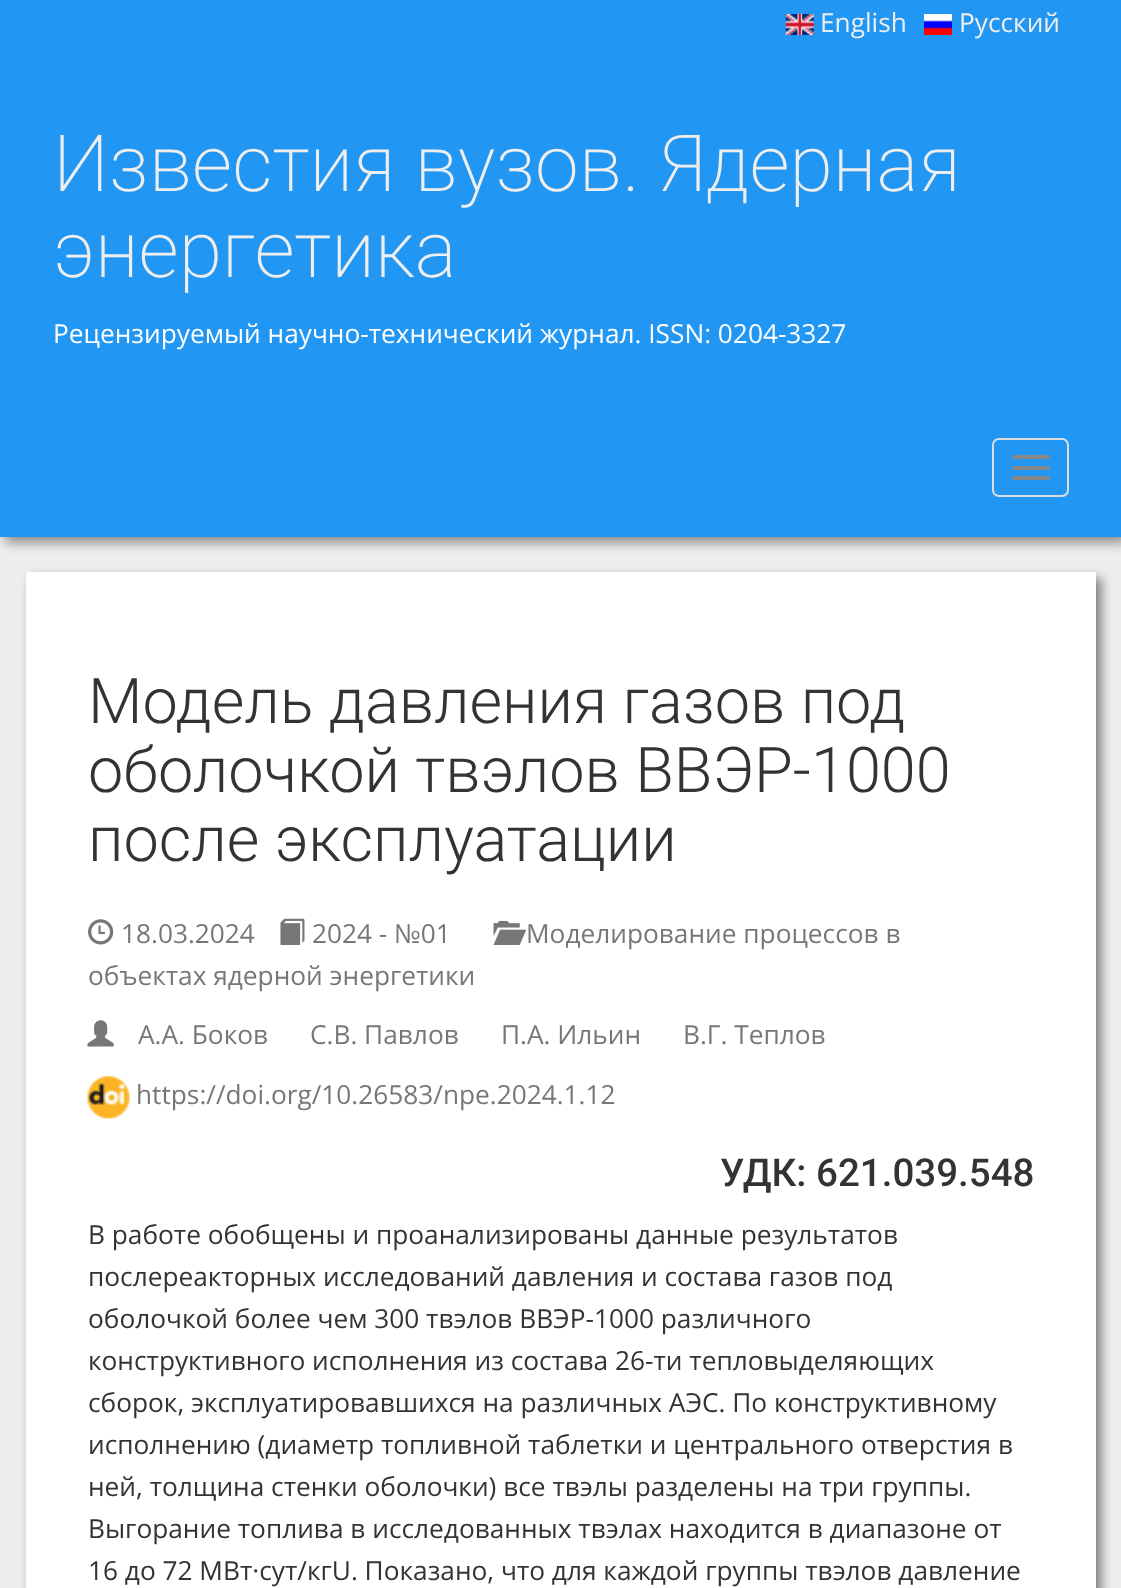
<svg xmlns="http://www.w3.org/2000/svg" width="1121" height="1588">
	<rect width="100%" height="100%" fill="#EEEEEE" />
	<rect x="5" y="5" width="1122" height="538" fill="#000000" fill-opacity="0.4" filter="blur(6px)" />
	<rect x="0" y="0" width="1121" height="537" fill="#2196F3" />
	<image x="785" y="14" width="29" height="21" href="assets/img1.png" />
	<text x="820" y="32" font-family="Open Sans" font-size="26.25" fill="#EEEEEE">English</text>
	<image x="924" y="14" width="28" height="21" href="assets/img2.png" />
	<text x="959" y="32" font-family="Open Sans" font-size="26.25" fill="#EEEEEE">Русский</text>
	<g font-family="Roboto" font-size="78.75" font-weight="200" fill="#EEEEEE">
		<text x="53" y="191">Известия вузов. Ядерная</text>
		<text x="53" y="277">энергетика</text>
	</g>
	<text x="53" y="343" font-family="Open Sans" font-size="26.25" fill="#FFFFFF">Рецензируемый научно-технический журнал. ISSN: 0204-3327</text>
	<rect x="993" y="439" width="75" height="57" rx="6" fill="none" stroke="#DDDDDD" stroke-width="2" />
	<rect x="1012" y="455" width="38" height="4" rx="2" fill="#888888" />
	<rect x="1012" y="466" width="38" height="4" rx="2" fill="#888888" />
	<rect x="1012" y="476" width="38" height="4" rx="2" fill="#888888" />
	<rect x="32" y="578" width="1069" height="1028" fill="#000000" fill-opacity="0.5" filter="blur(6px)" />
	<rect x="26" y="572" width="1070" height="1016" fill="#FFFFFF" />
	<g font-family="Roboto" font-size="63" font-weight="300" fill="#333333">
		<text x="88" y="723">Модель давления газов под</text>
		<text x="88" y="792">оболочкой твэлов ВВЭР-1000</text>
		<text x="88" y="861">после эксплуатации</text>
	</g>
	<image x="88" y="919" width="26" height="26" href="assets/img3.png" />
	<text x="121" y="943" font-family="Open Sans" font-size="26.25" fill="#777777">18.03.2024</text>
	<image x="280" y="918" width="25" height="27" href="assets/img4.png" />
	<text x="312" y="943" font-family="Open Sans" font-size="26.25" fill="#777777">2024 - №01</text>
	<image x="493" y="920" width="34" height="25" href="assets/img5.png" />
	<g font-family="Open Sans" font-size="26.25" fill="#777777">
		<text x="526" y="943">Моделирование процессов в</text>
		<text x="88" y="985">объектах ядерной энергетики</text>
	</g>
	<image x="87" y="1020" width="27" height="27" href="assets/img6.png" />
	<g font-family="Open Sans" font-size="26.25" fill="#777777">
		<text x="138" y="1044">А.А. Боков</text>
		<text x="310" y="1044">С.В. Павлов</text>
		<text x="501" y="1044">П.А. Ильин</text>
		<text x="683" y="1044">В.Г. Теплов</text>
	</g>
	<image x="87" y="1076" width="43" height="43" href="assets/img7.png" />
	<text x="136" y="1104" font-family="Open Sans" font-size="26.25" fill="#777777">https://doi.org/10.26583/npe.2024.1.12</text>
	<text x="720" y="1186" font-family="Roboto" font-size="38.5" font-weight="500" fill="#333333">УДК: 621.039.548</text>
	<g font-family="Open Sans" font-size="26.25" fill="#333333">
		<text x="88" y="1244">В работе обобщены и проанализированы данные результатов</text>
		<text x="88" y="1286">послереакторных исследований давления и состава газов под</text>
		<text x="88" y="1328">оболочкой более чем 300 твэлов ВВЭР-1000 различного</text>
		<text x="88" y="1370">конструктивного исполнения из состава 26-ти тепловыделяющих</text>
		<text x="88" y="1412">сборок, эксплуатировавшихся на различных АЭС. По конструктивному</text>
		<text x="88" y="1454">исполнению (диаметр топливной таблетки и центрального отверстия в</text>
		<text x="88" y="1496">ней, толщина стенки оболочки) все твэлы разделены на три группы.</text>
		<text x="88" y="1538">Выгорание топлива в исследованных твэлах находится в диапазоне от</text>
		<text x="88" y="1580">16 до 72 МВт·сут/кгU. Показано, что для каждой группы твэлов давление</text>
	</g>
</svg>
